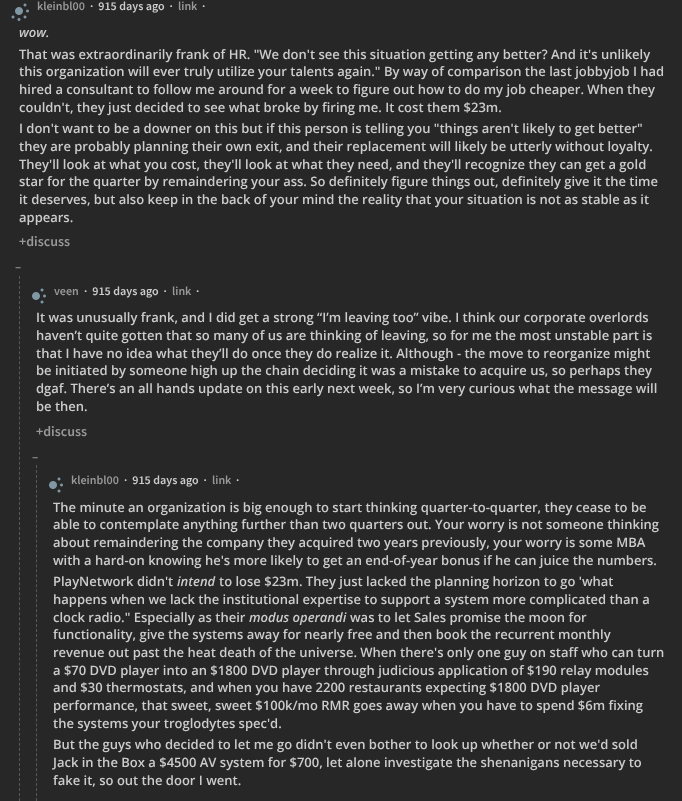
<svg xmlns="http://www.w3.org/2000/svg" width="682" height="801">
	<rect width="100%" height="100%" fill="#272727" />
	<text x="37" y="10" font-family="Source Sans Pro" font-size="12" font-weight="600" fill="#999999">kleinbl00</text>
	<text x="90" y="10" font-family="Source Sans Pro" font-size="12" font-weight="600" fill="#CCCCCC" xml:space="preserve">·  915 days ago  ·</text>
	<text x="178" y="10" font-family="Source Sans Pro" font-size="12" font-weight="600" fill="#999999">link</text>
	<text x="202" y="10" font-family="Source Sans Pro" font-size="12" font-weight="600" fill="#CCCCCC">·</text>
	<text x="19" y="37" font-family="Open Sans" font-size="13" font-weight="600" font-style="italic" fill="#CCCCCC">wow.</text>
	<g font-family="Open Sans" font-size="13" font-weight="600" fill="#CCCCCC">
		<text x="19" y="59">That was extraordinarily frank of HR. "We don't see this situation getting any better? And it's unlikely</text>
		<text x="19" y="76">this organization will ever truly utilize your talents again." By way of comparison the last jobbyjob I had</text>
		<text x="19" y="94">hired a consultant to follow me around for a week to figure out how to do my job cheaper. When they</text>
		<text x="19" y="112">couldn't, they just decided to see what broke by firing me. It cost them $23m.</text>
		<text x="19" y="133">I don't want to be a downer on this but if this person is telling you "things aren't likely to get better"</text>
		<text x="19" y="151">they are probably planning their own exit, and their replacement will likely be utterly without loyalty.</text>
		<text x="19" y="169">They'll look at what you cost, they'll look at what they need, and they'll recognize they can get a gold</text>
		<text x="19" y="186">star for the quarter by remaindering your ass. So definitely figure things out, definitely give it the time</text>
		<text x="19" y="204">it deserves, but also keep in the back of your mind the reality that your situation is not as stable as it</text>
		<text x="19" y="222">appears.</text>
	</g>
	<text x="19" y="246" font-family="Source Sans Pro" font-size="14" font-weight="600" fill="#999999">+discuss</text>
	<image x="11" y="3" width="18" height="18" href="assets/img1.png" />
	<text x="15" y="271" font-family="Source Sans Pro" font-size="13" font-weight="600" fill="#999999">–</text>
	<path d="M19.5 276V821" fill="none" stroke="#585858" stroke-dasharray="3 2.02" />
	<text x="54" y="295" font-family="Source Sans Pro" font-size="12" font-weight="600" fill="#999999">veen</text>
	<text x="84" y="295" font-family="Source Sans Pro" font-size="12" font-weight="600" fill="#CCCCCC" xml:space="preserve">·  915 days ago  ·</text>
	<text x="172" y="295" font-family="Source Sans Pro" font-size="12" font-weight="600" fill="#999999">link</text>
	<text x="196" y="295" font-family="Source Sans Pro" font-size="12" font-weight="600" fill="#CCCCCC">·</text>
	<g font-family="Open Sans" font-size="13" font-weight="600" fill="#CCCCCC">
		<text x="36" y="322">It was unusually frank, and I did get a strong “I’m leaving too” vibe. I think our corporate overlords</text>
		<text x="36" y="340">haven’t quite gotten that so many of us are thinking of leaving, so for me the most unstable part is</text>
		<text x="36" y="358">that I have no idea what they’ll do once they do realize it. Although - the move to reorganize might</text>
		<text x="36" y="375">be initiated by someone high up the chain deciding it was a mistake to acquire us, so perhaps they</text>
		<text x="36" y="393">dgaf. There’s an all hands update on this early next week, so I’m very curious what the message will</text>
		<text x="36" y="411">be then.</text>
	</g>
	<text x="36" y="436" font-family="Source Sans Pro" font-size="14" font-weight="600" fill="#999999">+discuss</text>
	<image x="32" y="288" width="14" height="16" href="assets/img2.png" />
	<text x="32" y="461" font-family="Source Sans Pro" font-size="13" font-weight="600" fill="#999999">–</text>
	<path d="M36.5 465V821" fill="none" stroke="#585858" stroke-dasharray="3 1.97" />
	<text x="71" y="484" font-family="Source Sans Pro" font-size="12" font-weight="600" fill="#999999">kleinbl00</text>
	<text x="124" y="484" font-family="Source Sans Pro" font-size="12" font-weight="600" fill="#CCCCCC" xml:space="preserve">·  915 days ago  ·</text>
	<text x="212" y="484" font-family="Source Sans Pro" font-size="12" font-weight="600" fill="#999999">link</text>
	<text x="236" y="484" font-family="Source Sans Pro" font-size="12" font-weight="600" fill="#CCCCCC">·</text>
	<g font-family="Open Sans" font-size="13" font-weight="600" fill="#CCCCCC">
		<text x="53" y="512">The minute an organization is big enough to start thinking quarter-to-quarter, they cease to be</text>
		<text x="53" y="529">able to contemplate anything further than two quarters out. Your worry is not someone thinking</text>
		<text x="53" y="547">about remaindering the company they acquired two years previously, your worry is some MBA</text>
		<text x="53" y="565">with a hard-on knowing he's more likely to get an end-of-year bonus if he can juice the numbers.</text>
		<text x="53" y="586">PlayNetwork didn't</text>
	</g>
	<text x="177" y="586" font-family="Open Sans" font-size="13" font-weight="600" font-style="italic" fill="#CCCCCC">intend</text>
	<g font-family="Open Sans" font-size="13" font-weight="600" fill="#CCCCCC">
		<text x="219" y="586">to lose $23m. They just lacked the planning horizon to go 'what</text>
		<text x="53" y="604">happens when we lack the institutional expertise to support a system more complicated than a</text>
		<text x="53" y="622">clock radio." Especially as their</text>
	</g>
	<text x="249" y="622" font-family="Open Sans" font-size="13" font-weight="600" font-style="italic" fill="#CCCCCC">modus operandi</text>
	<g font-family="Open Sans" font-size="13" font-weight="600" fill="#CCCCCC">
		<text x="350" y="622">was to let Sales promise the moon for</text>
		<text x="53" y="639">functionality, give the systems away for nearly free and then book the recurrent monthly</text>
		<text x="53" y="657">revenue out past the heat death of the universe. When there's only one guy on staff who can turn</text>
		<text x="53" y="675">a $70 DVD player into an $1800 DVD player through judicious application of $190 relay modules</text>
		<text x="53" y="692">and $30 thermostats, and when you have 2200 restaurants expecting $1800 DVD player</text>
		<text x="53" y="710">performance, that sweet, sweet $100k/mo RMR goes away when you have to spend $6m fixing</text>
		<text x="53" y="728">the systems your troglodytes spec'd.</text>
		<text x="53" y="749">But the guys who decided to let me go didn't even bother to look up whether or not we'd sold</text>
		<text x="53" y="767">Jack in the Box a $4500 AV system for $700, let alone investigate the shenanigans necessary to</text>
		<text x="53" y="785">fake it, so out the door I went.</text>
	</g>
	<image x="49" y="477" width="14" height="16" href="assets/img2.png" />
</svg>
